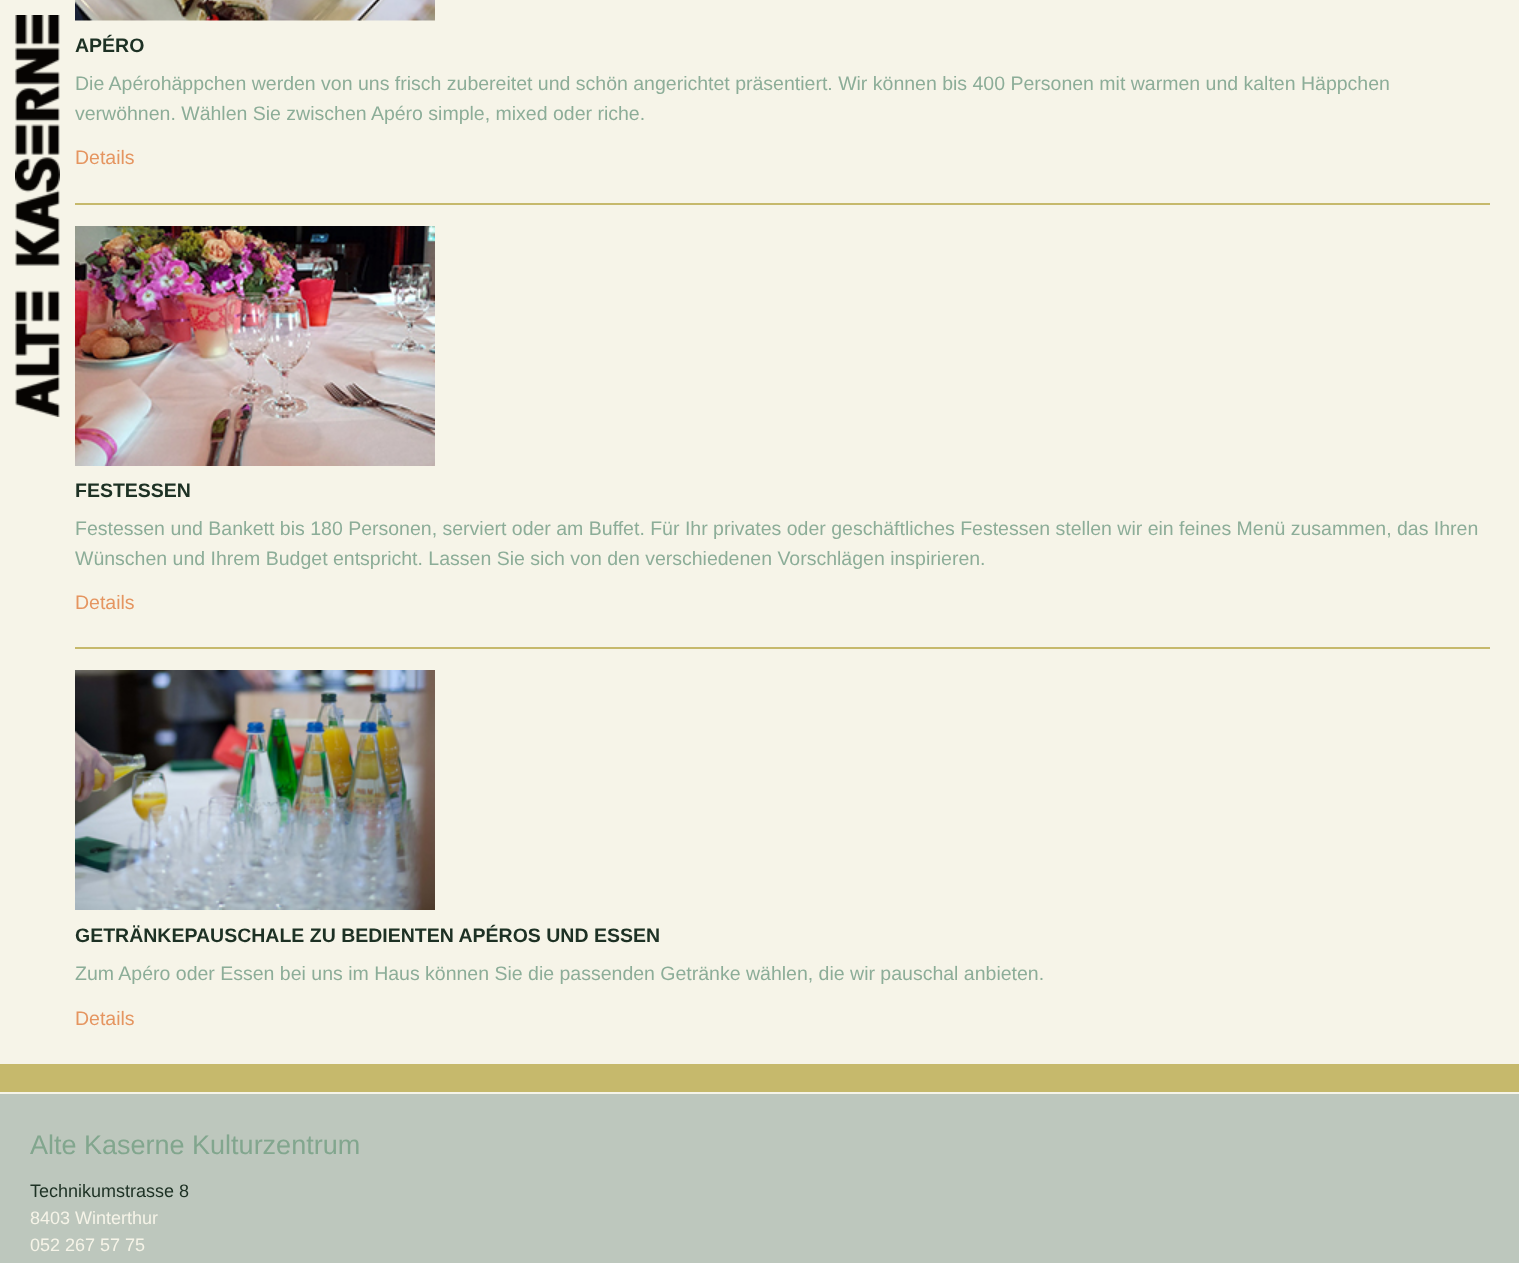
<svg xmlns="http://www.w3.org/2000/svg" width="1519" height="1263">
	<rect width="100%" height="100%" fill="#F6F4E8" />
	<image x="15" y="15" width="45" height="402" href="assets/img1.png" />
	<image x="75" y="0" width="360" height="21" href="assets/img2.png" />
	<text x="75" y="52" font-family="Liberation Sans" font-size="19.5" font-weight="700" fill="#1D3124">APÉRO</text>
	<g font-family="Liberation Sans" font-size="19.5" fill="#8CAD98">
		<text x="75" y="90">Die Apérohäppchen werden von uns frisch zubereitet und schön angerichtet präsentiert. Wir können bis 400 Personen mit warmen und kalten Häppchen</text>
		<text x="75" y="120">verwöhnen. Wählen Sie zwischen Apéro simple, mixed oder riche.</text>
	</g>
	<text x="75" y="164" font-family="Liberation Sans" font-size="19.5" fill="#E59560">Details</text>
	<rect x="75" y="203" width="1415" height="2" fill="#C6B96C" />
	<image x="75" y="226" width="360" height="240" href="assets/img3.png" />
	<text x="75" y="497" font-family="Liberation Sans" font-size="19.5" font-weight="700" fill="#1D3124">FESTESSEN</text>
	<g font-family="Liberation Sans" font-size="19.5" fill="#8CAD98">
		<text x="75" y="535">Festessen und Bankett bis 180 Personen, serviert oder am Buffet. Für Ihr privates oder geschäftliches Festessen stellen wir ein feines Menü zusammen, das Ihren</text>
		<text x="75" y="565">Wünschen und Ihrem Budget entspricht. Lassen Sie sich von den verschiedenen Vorschlägen inspirieren.</text>
	</g>
	<text x="75" y="609" font-family="Liberation Sans" font-size="19.5" fill="#E59560">Details</text>
	<rect x="75" y="647" width="1415" height="2" fill="#C6B96C" />
	<image x="75" y="670" width="360" height="240" href="assets/img4.png" />
	<text x="75" y="942" font-family="Liberation Sans" font-size="19.5" font-weight="700" fill="#1D3124">GETRÄNKEPAUSCHALE ZU BEDIENTEN APÉROS UND ESSEN</text>
	<text x="75" y="980" font-family="Liberation Sans" font-size="19.5" fill="#8CAD98">Zum Apéro oder Essen bei uns im Haus können Sie die passenden Getränke wählen, die wir pauschal anbieten.</text>
	<text x="75" y="1025" font-family="Liberation Sans" font-size="19.5" fill="#E59560">Details</text>
	<rect x="0" y="1094" width="1519" height="169" fill="#BDC7BD" />
	<rect x="0" y="1064" width="1519" height="28" fill="#C6B96C" />
	<text x="30" y="1154" font-family="Liberation Sans" font-size="27" fill="#82A68E">Alte Kaserne Kulturzentrum</text>
	<text x="30" y="1197" font-family="Liberation Sans" font-size="18" fill="#1D3124">Technikumstrasse 8</text>
	<g font-family="Liberation Sans" font-size="18" fill="#F6F4E8">
		<text x="30" y="1224">8403 Winterthur</text>
		<text x="30" y="1251">052 267 57 75</text>
	</g>
</svg>
